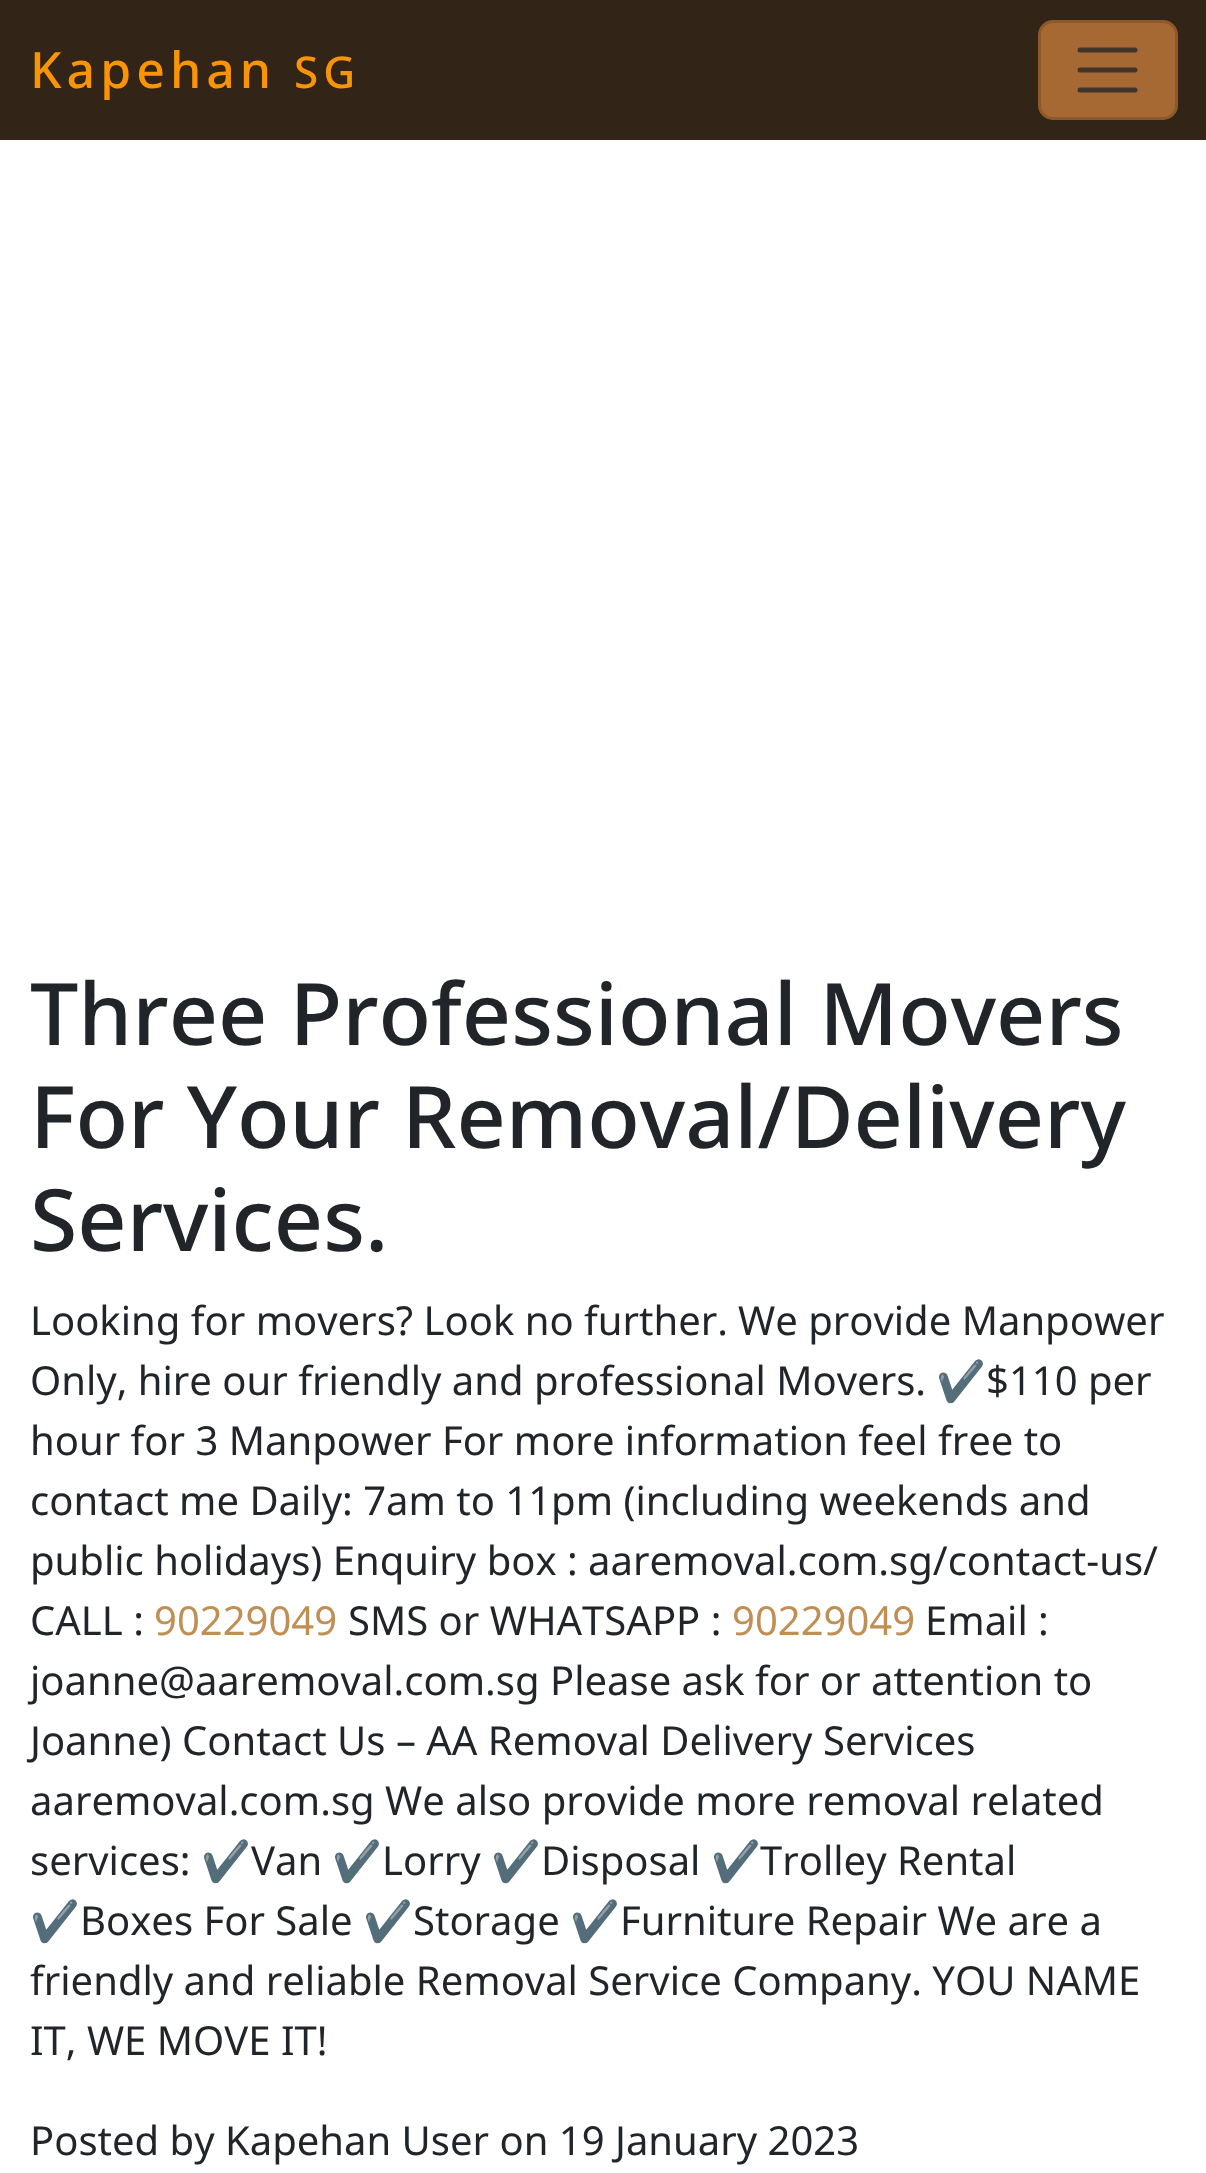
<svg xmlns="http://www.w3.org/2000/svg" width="1206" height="2173">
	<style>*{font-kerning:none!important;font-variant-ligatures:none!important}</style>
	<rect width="100%" height="100%" fill="#FFFFFF" />
	<rect x="0" y="0" width="1206" height="140" fill="#322416" />
	<text x="30" y="88" font-family="Noto Sans" font-size="50" font-weight="500" letter-spacing="5" fill="#F89406">Kapehan</text>
	<text x="294" y="88" font-family="Noto Sans" font-size="44" font-weight="500" letter-spacing="5" fill="#F89406">SG</text>
	<rect x="1038" y="20" width="140" height="100" rx="15" fill="#A66933" />
	<rect x="1039.5" y="21.5" width="137" height="97" rx="13.5" fill="none" stroke="#000000" stroke-opacity="0.15" stroke-width="3" />
	<path d="M1080 50H1135M1080 70H1135M1080 90H1135" fill="none" stroke="#42362C" stroke-width="5" stroke-linecap="round" />
	<g font-family="Noto Sans" font-size="86" font-weight="500" fill="#212529">
		<text x="30" y="1045">Three Professional Movers</text>
		<text x="30" y="1148">For Your Removal/Delivery</text>
		<text x="30" y="1251">Services.</text>
	</g>
	<g font-family="Noto Sans" font-size="40" fill="#212529">
		<text x="30" y="1335">Looking for movers? Look no further.</text>
		<text x="738" y="1335">We provide Manpower</text>
		<text x="30" y="1395">Only, hire our friendly and professional Movers.</text>
	</g>
	<text x="936" y="1395" font-family="Noto Color Emoji" font-size="40" fill="#212529">✔</text>
	<g font-family="Noto Sans" font-size="40" fill="#212529">
		<text x="986" y="1395">$110 per</text>
		<text x="30" y="1455">hour for 3 Manpower For more information feel free to</text>
		<text x="30" y="1515">contact me Daily: 7am to 11pm (including weekends and</text>
		<text x="30" y="1575">public holidays) Enquiry box : aaremoval.com.sg/contact-us/</text>
		<text x="30" y="1635">CALL :</text>
	</g>
	<text x="154" y="1635" font-family="Noto Sans" font-size="40" fill="#BF8F54">90229049</text>
	<text x="348" y="1635" font-family="Noto Sans" font-size="40" fill="#212529">SMS or WHATSAPP :</text>
	<text x="732" y="1635" font-family="Noto Sans" font-size="40" fill="#BF8F54">90229049</text>
	<g font-family="Noto Sans" font-size="40" fill="#212529">
		<text x="925" y="1635">Email :</text>
		<text x="30" y="1695">joanne@aaremoval.com.sg Please ask for or attention to</text>
		<text x="30" y="1755">Joanne) Contact Us – AA Removal Delivery Services</text>
		<text x="30" y="1815">aaremoval.com.sg We also provide more removal related</text>
		<text x="30" y="1875">services:</text>
	</g>
	<text x="201" y="1875" font-family="Noto Color Emoji" font-size="40" fill="#212529">✔</text>
	<text x="251" y="1875" font-family="Noto Sans" font-size="40" fill="#212529">Van</text>
	<text x="332" y="1875" font-family="Noto Color Emoji" font-size="40" fill="#212529">✔</text>
	<text x="382" y="1875" font-family="Noto Sans" font-size="40" fill="#212529">Lorry</text>
	<text x="491" y="1875" font-family="Noto Color Emoji" font-size="40" fill="#212529">✔</text>
	<text x="541" y="1875" font-family="Noto Sans" font-size="40" fill="#212529">Disposal</text>
	<text x="711" y="1875" font-family="Noto Color Emoji" font-size="40" fill="#212529">✔</text>
	<text x="760" y="1875" font-family="Noto Sans" font-size="40" fill="#212529">Trolley Rental</text>
	<text x="30" y="1935" font-family="Noto Color Emoji" font-size="40" fill="#212529">✔</text>
	<text x="80" y="1935" font-family="Noto Sans" font-size="40" fill="#212529">Boxes For Sale</text>
	<text x="363" y="1935" font-family="Noto Color Emoji" font-size="40" fill="#212529">✔</text>
	<text x="413" y="1935" font-family="Noto Sans" font-size="40" fill="#212529">Storage</text>
	<text x="570" y="1935" font-family="Noto Color Emoji" font-size="40" fill="#212529">✔</text>
	<g font-family="Noto Sans" font-size="40" fill="#212529">
		<text x="620" y="1935">Furniture Repair We are a</text>
		<text x="30" y="1995">friendly and reliable Removal Service Company. YOU NAME</text>
		<text x="30" y="2055">IT, WE MOVE IT!</text>
		<text x="30" y="2155">Posted by Kapehan User on 19 January 2023</text>
	</g>
</svg>
